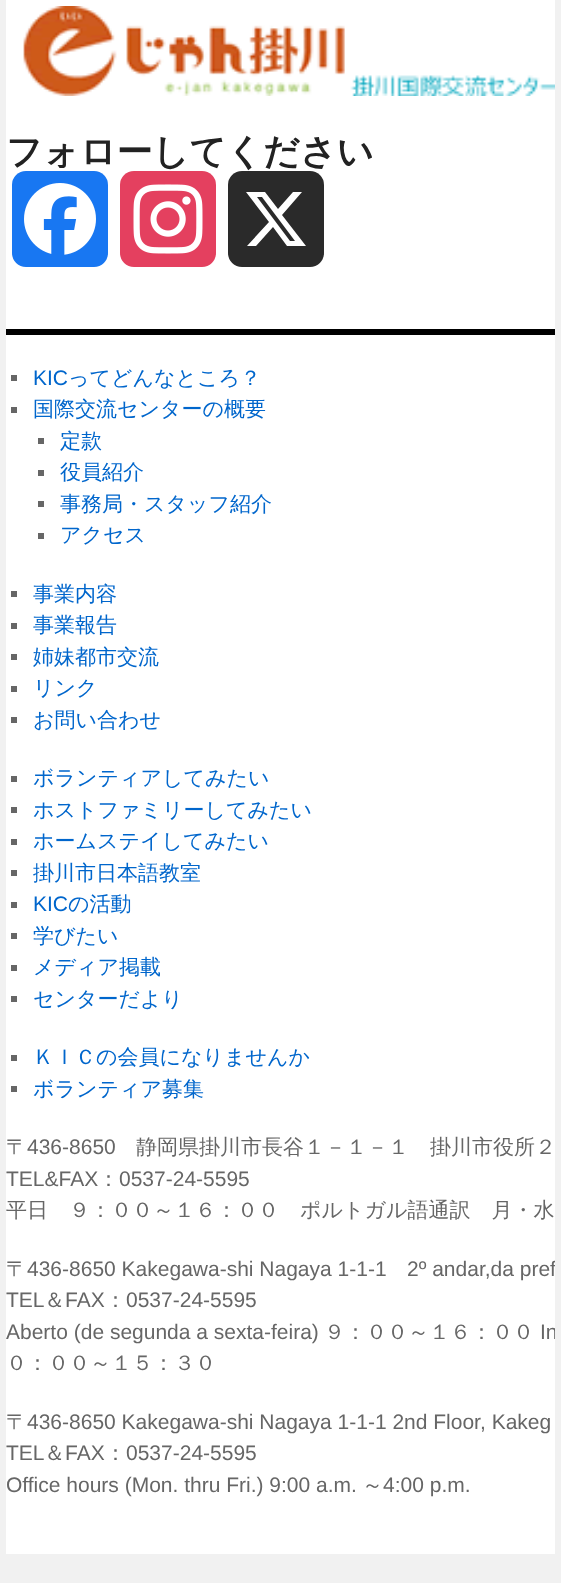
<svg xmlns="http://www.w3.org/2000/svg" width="561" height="1583">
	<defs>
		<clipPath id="clip1"><rect x="6" y="335" width="549" height="1219" /></clipPath>
	</defs>
	<rect width="100%" height="100%" fill="#F1F1F1" />
	<rect x="6" y="0" width="549" height="1554" fill="#FFFFFF" />
	<image x="23" y="6" width="532" height="90" href="assets/img1.png" />
	<text x="6" y="164" font-family="WenQuanYi Zen Hei" font-size="36" font-weight="700" fill="#222222">フォローしてください</text>
	<rect x="12" y="171" width="96" height="96" rx="14" fill="#1877F2" />
	<image x="24" y="183" width="72" height="72" href="assets/img2.png" />
	<rect x="120" y="171" width="96" height="96" rx="14" fill="#E4405F" />
	<image x="133" y="184" width="70" height="70" href="assets/img3.png" />
	<rect x="228" y="171" width="96" height="96" rx="14" fill="#2A2A2A" />
	<path d="M293 192H302L282 215L306 246H287L273 227L256 246H247L269 222L246 192H265L278 209ZM290 241H295L262 197H257Z" fill="#FFFFFF" />
	<rect x="6" y="329" width="549" height="6" fill="#000000" />
	<rect x="11" y="375" width="6" height="6" fill="#666666" />
	<text x="33" y="385" font-family="Liberation Sans" font-size="21" fill="#0066CC">KIC</text>
	<text x="68" y="385" font-family="WenQuanYi Zen Hei" font-size="21" font-weight="500" fill="#0066CC">ってどんなところ？</text>
	<rect x="11" y="407" width="6" height="6" fill="#666666" />
	<text x="33" y="416" font-family="WenQuanYi Zen Hei" font-size="21" font-weight="500" fill="#0066CC">国際交流センターの概要</text>
	<rect x="38" y="438" width="6" height="6" fill="#666666" />
	<text x="60" y="448" font-family="WenQuanYi Zen Hei" font-size="21" font-weight="500" fill="#0066CC">定款</text>
	<rect x="38" y="470" width="6" height="6" fill="#666666" />
	<text x="60" y="479" font-family="WenQuanYi Zen Hei" font-size="21" font-weight="500" fill="#0066CC">役員紹介</text>
	<rect x="38" y="501" width="6" height="6" fill="#666666" />
	<text x="60" y="511" font-family="WenQuanYi Zen Hei" font-size="21" font-weight="500" fill="#0066CC">事務局・スタッフ紹介</text>
	<rect x="38" y="533" width="6" height="6" fill="#666666" />
	<text x="60" y="542" font-family="WenQuanYi Zen Hei" font-size="21" font-weight="500" fill="#0066CC">アクセス</text>
	<rect x="11" y="591" width="6" height="6" fill="#666666" />
	<text x="33" y="601" font-family="WenQuanYi Zen Hei" font-size="21" font-weight="500" fill="#0066CC">事業内容</text>
	<rect x="11" y="623" width="6" height="6" fill="#666666" />
	<text x="33" y="632" font-family="WenQuanYi Zen Hei" font-size="21" font-weight="500" fill="#0066CC">事業報告</text>
	<rect x="11" y="654" width="6" height="6" fill="#666666" />
	<text x="33" y="664" font-family="WenQuanYi Zen Hei" font-size="21" font-weight="500" fill="#0066CC">姉妹都市交流</text>
	<rect x="11" y="686" width="6" height="6" fill="#666666" />
	<text x="33" y="695" font-family="WenQuanYi Zen Hei" font-size="21" font-weight="500" fill="#0066CC">リンク</text>
	<rect x="11" y="717" width="6" height="6" fill="#666666" />
	<text x="33" y="727" font-family="WenQuanYi Zen Hei" font-size="21" font-weight="500" fill="#0066CC">お問い合わせ</text>
	<rect x="11" y="776" width="6" height="6" fill="#666666" />
	<text x="33" y="785" font-family="WenQuanYi Zen Hei" font-size="21" font-weight="500" fill="#0066CC">ボランティアしてみたい</text>
	<rect x="11" y="807" width="6" height="6" fill="#666666" />
	<text x="33" y="817" font-family="WenQuanYi Zen Hei" font-size="21" font-weight="500" fill="#0066CC">ホストファミリーしてみたい</text>
	<rect x="11" y="839" width="6" height="6" fill="#666666" />
	<text x="33" y="848" font-family="WenQuanYi Zen Hei" font-size="21" font-weight="500" fill="#0066CC">ホームステイしてみたい</text>
	<rect x="11" y="870" width="6" height="6" fill="#666666" />
	<text x="33" y="880" font-family="WenQuanYi Zen Hei" font-size="21" font-weight="500" fill="#0066CC">掛川市日本語教室</text>
	<rect x="11" y="902" width="6" height="6" fill="#666666" />
	<text x="33" y="911" font-family="Liberation Sans" font-size="21" fill="#0066CC">KIC</text>
	<text x="68" y="911" font-family="WenQuanYi Zen Hei" font-size="21" font-weight="500" fill="#0066CC">の活動</text>
	<rect x="11" y="933" width="6" height="6" fill="#666666" />
	<text x="33" y="943" font-family="WenQuanYi Zen Hei" font-size="21" font-weight="500" fill="#0066CC">学びたい</text>
	<rect x="11" y="965" width="6" height="6" fill="#666666" />
	<text x="33" y="974" font-family="WenQuanYi Zen Hei" font-size="21" font-weight="500" fill="#0066CC">メディア掲載</text>
	<rect x="11" y="996" width="6" height="6" fill="#666666" />
	<text x="33" y="1006" font-family="WenQuanYi Zen Hei" font-size="21" font-weight="500" fill="#0066CC">センターだより</text>
	<rect x="11" y="1055" width="6" height="6" fill="#666666" />
	<text x="33" y="1064" font-family="WenQuanYi Zen Hei" font-size="21" font-weight="500" fill="#0066CC">ＫＩＣの会員になりませんか</text>
	<rect x="11" y="1086" width="6" height="6" fill="#666666" />
	<text x="33" y="1096" font-family="WenQuanYi Zen Hei" font-size="21" font-weight="500" fill="#0066CC">ボランティア募集</text>
	<text x="6" y="1154" font-family="WenQuanYi Zen Hei" font-size="21" font-weight="500" fill="#666666">〒</text>
	<text x="27" y="1154" font-family="Liberation Sans" font-size="21" fill="#666666">436-8650</text>
	<text x="136" y="1154" font-family="WenQuanYi Zen Hei" font-size="21" font-weight="500" fill="#666666">静岡県掛川市長谷１－１－１　掛川市役所２</text>
	<text x="6" y="1186" font-family="Liberation Sans" font-size="21" fill="#666666">TEL&amp;FAX</text>
	<text x="98" y="1186" font-family="WenQuanYi Zen Hei" font-size="21" font-weight="500" fill="#666666">：</text>
	<text x="119" y="1186" font-family="Liberation Sans" font-size="21" fill="#666666">0537-24-5595</text>
	<g font-family="WenQuanYi Zen Hei" font-size="21" font-weight="500" fill="#666666">
		<text x="6" y="1217">平日　９：００～１６：００　ポルトガル語通訳　月・水</text>
		<text x="6" y="1276">〒</text>
	</g>
	<text x="27" y="1276" font-family="Liberation Sans" font-size="21" fill="#666666">436-8650 Kakegawa-shi Nagaya 1-1-1</text>
	<g clip-path="url(#clip1)">
		<text x="407" y="1276" font-family="Liberation Sans" font-size="21" fill="#666666">2º andar,da pref</text>
	</g>
	<text x="6" y="1307" font-family="Liberation Sans" font-size="21" fill="#666666">TEL</text>
	<text x="44" y="1307" font-family="WenQuanYi Zen Hei" font-size="21" font-weight="500" fill="#666666">＆</text>
	<text x="65" y="1307" font-family="Liberation Sans" font-size="21" fill="#666666">FAX</text>
	<text x="105" y="1307" font-family="WenQuanYi Zen Hei" font-size="21" font-weight="500" fill="#666666">：</text>
	<g font-family="Liberation Sans" font-size="21" fill="#666666">
		<text x="126" y="1307">0537-24-5595</text>
		<text x="6" y="1339">Aberto (de segunda a sexta-feira)</text>
	</g>
	<text x="324" y="1339" font-family="WenQuanYi Zen Hei" font-size="21" font-weight="500" fill="#666666">９：００～１６：００</text>
	<g clip-path="url(#clip1)">
		<text x="540" y="1339" font-family="Liberation Sans" font-size="21" fill="#666666">In</text>
	</g>
	<g font-family="WenQuanYi Zen Hei" font-size="21" font-weight="500" fill="#666666">
		<text x="6" y="1370">０：００～１５：３０</text>
		<text x="6" y="1429">〒</text>
	</g>
	<g font-family="Liberation Sans" font-size="21" fill="#666666">
		<text x="27" y="1429">436-8650 Kakegawa-shi Nagaya 1-1-1 2nd Floor, Kakeg</text>
		<text x="6" y="1460">TEL</text>
	</g>
	<text x="44" y="1460" font-family="WenQuanYi Zen Hei" font-size="21" font-weight="500" fill="#666666">＆</text>
	<text x="65" y="1460" font-family="Liberation Sans" font-size="21" fill="#666666">FAX</text>
	<text x="105" y="1460" font-family="WenQuanYi Zen Hei" font-size="21" font-weight="500" fill="#666666">：</text>
	<g font-family="Liberation Sans" font-size="21" fill="#666666">
		<text x="126" y="1460">0537-24-5595</text>
		<text x="6" y="1492">Office hours (Mon. thru Fri.) 9:00 a.m.</text>
	</g>
	<text x="362" y="1492" font-family="WenQuanYi Zen Hei" font-size="21" font-weight="500" fill="#666666">～</text>
	<text x="383" y="1492" font-family="Liberation Sans" font-size="21" fill="#666666">4:00 p.m.</text>
</svg>
